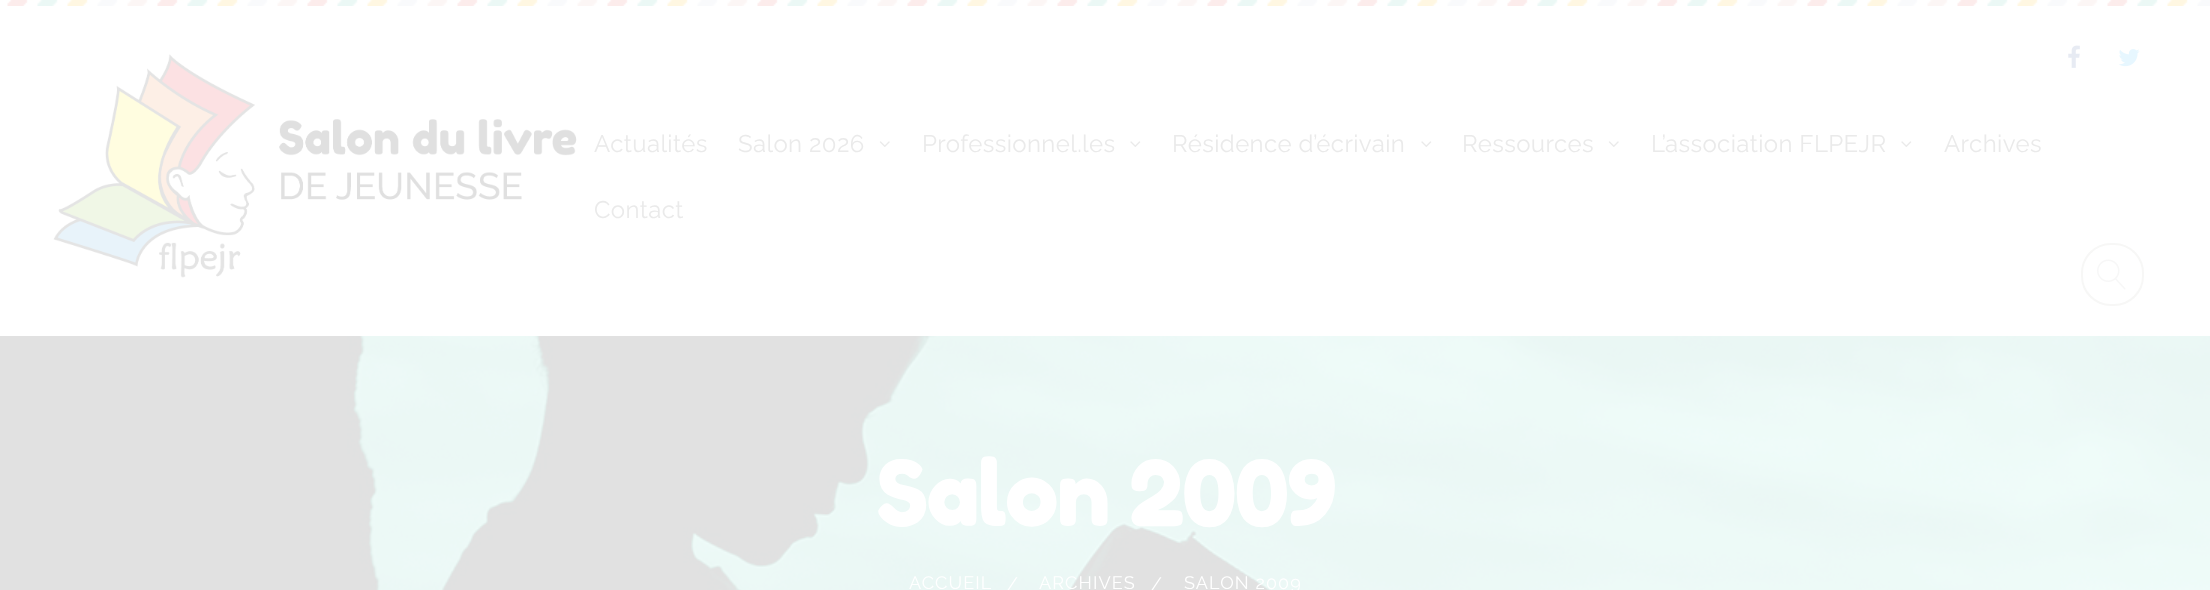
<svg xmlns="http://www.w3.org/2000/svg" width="2210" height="590">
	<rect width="100%" height="100%" fill="#FFFFFF" />
	<image x="0" y="0" width="2210" height="6" href="assets/img1.png" />
	<image x="53" y="54" width="524" height="224" href="assets/img2.png" />
	<image x="2068" y="45" width="12" height="23" href="assets/img3.png" />
	<image x="2118" y="49" width="22" height="18" href="assets/img4.png" />
	<g font-family="Raleway" font-size="24" letter-spacing="0.4" fill="#EAEAEA">
		<text x="594" y="152">Actualités</text>
		<text x="738" y="152">Salon 2026</text>
	</g>
	<image x="879" y="141" width="11" height="7" href="assets/img5.png" />
	<text x="922" y="152" font-family="Raleway" font-size="24" letter-spacing="0.4" fill="#EAEAEA">Professionnel.les</text>
	<image x="1130" y="141" width="11" height="7" href="assets/img6.png" />
	<text x="1172" y="152" font-family="Raleway" font-size="24" letter-spacing="0.4" fill="#EAEAEA">Résidence d’écrivain</text>
	<image x="1421" y="141" width="11" height="7" href="assets/img6.png" />
	<text x="1462" y="152" font-family="Raleway" font-size="24" letter-spacing="0.4" fill="#EAEAEA">Ressources</text>
	<image x="1608" y="141" width="11" height="7" href="assets/img5.png" />
	<text x="1651" y="152" font-family="Raleway" font-size="24" letter-spacing="0.4" fill="#EAEAEA">L’association FLPEJR</text>
	<image x="1901" y="141" width="11" height="7" href="assets/img6.png" />
	<g font-family="Raleway" font-size="24" letter-spacing="0.4" fill="#EAEAEA">
		<text x="1944" y="152">Archives</text>
		<text x="594" y="218">Contact</text>
	</g>
	<rect x="2082" y="244" width="61" height="61" rx="29" fill="none" stroke="#F7F7F6" stroke-width="2" />
	<image x="2097" y="259" width="29" height="31" href="assets/img7.png" />
	<image x="0" y="336" width="2210" height="254" href="assets/img8.png" />
	<text x="876" y="526" font-family="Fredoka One" font-size="90" letter-spacing="-2.25" fill="#FFFFFF">Salon 2009</text>
	<g font-family="Raleway" font-size="18" letter-spacing="1.1" fill="#FFFFFF">
		<text x="909" y="589">ACCUEIL</text>
		<text x="1007" y="590">/</text>
		<text x="1039" y="589">ARCHIVES</text>
		<text x="1151" y="590">/</text>
		<text x="1184" y="589">SALON 2009</text>
	</g>
</svg>
